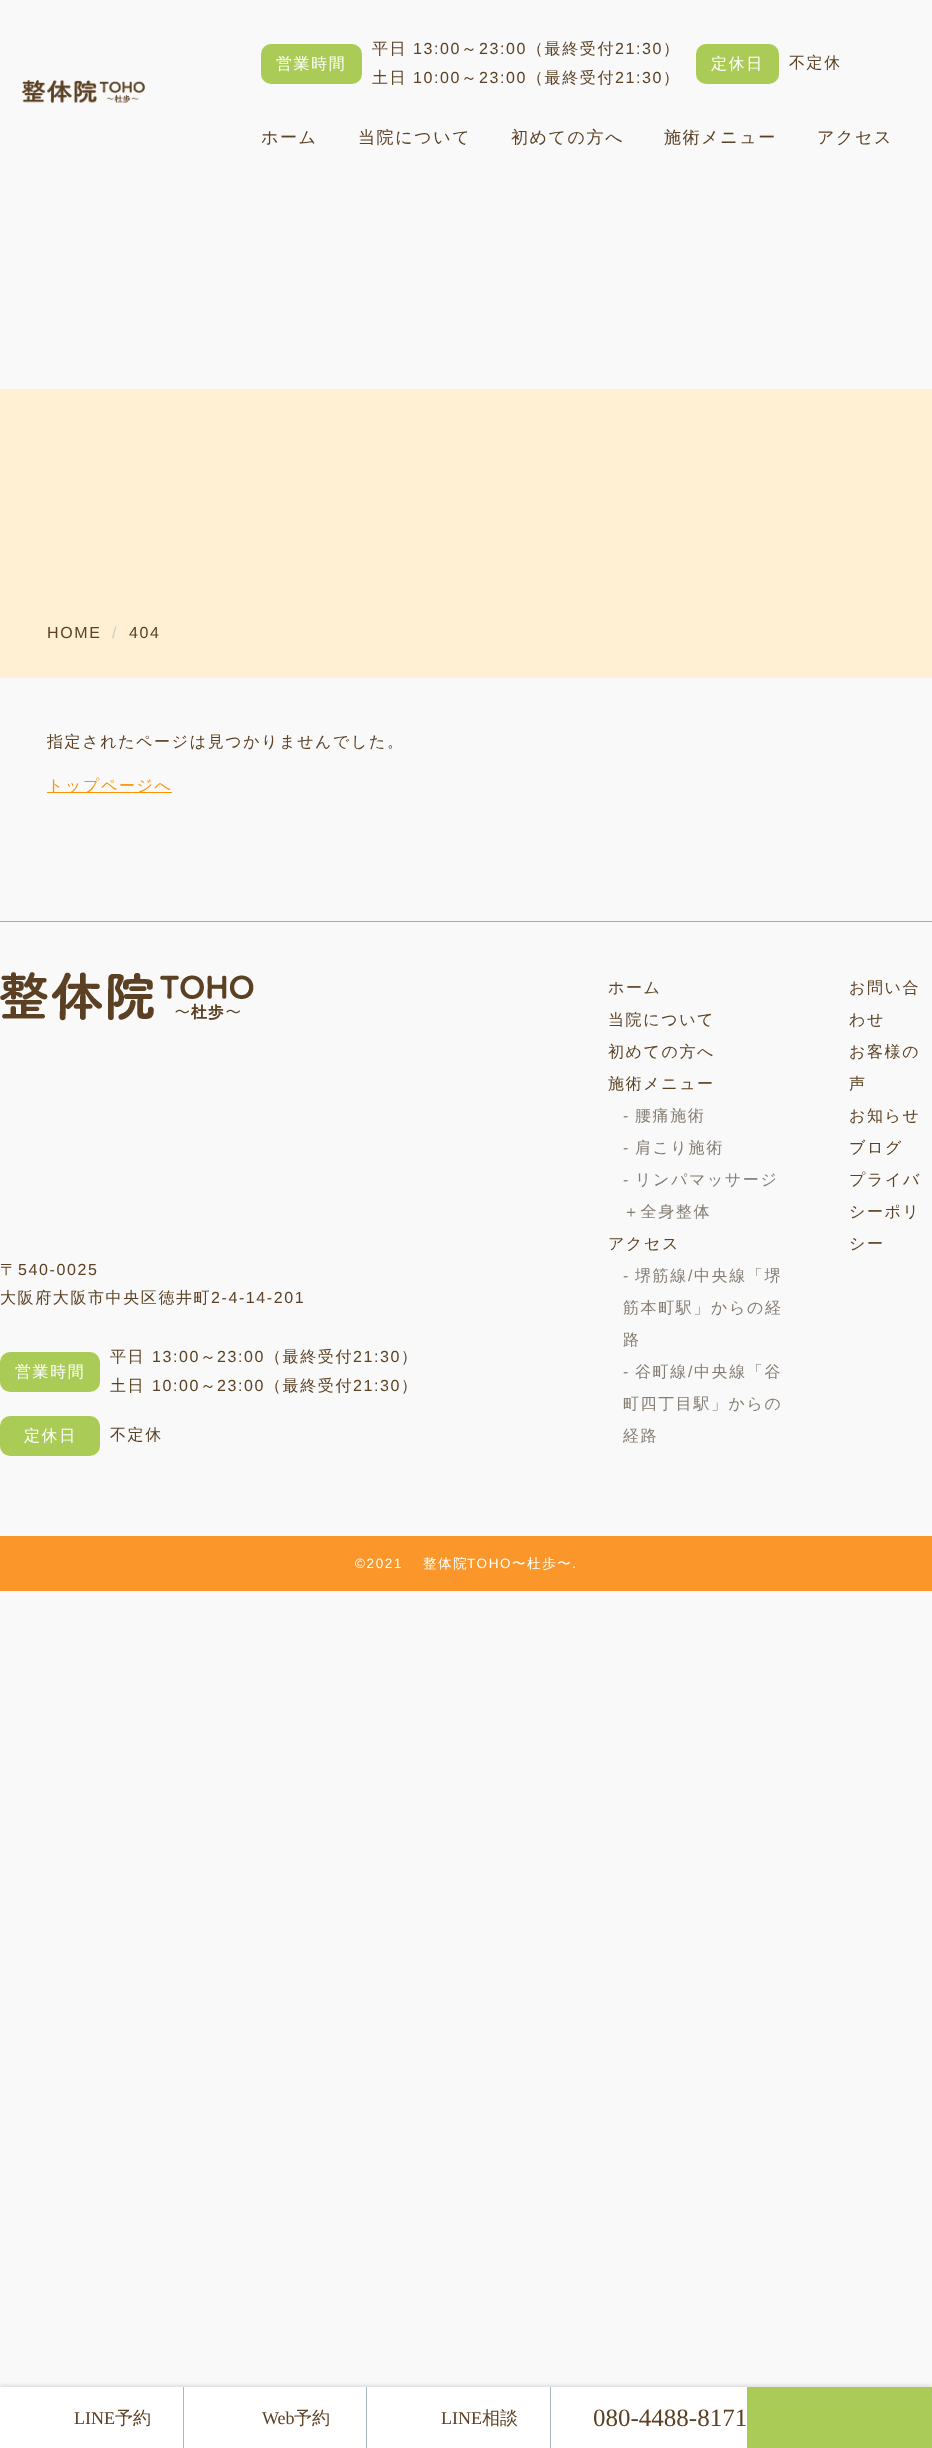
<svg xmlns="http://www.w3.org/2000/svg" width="932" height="2448">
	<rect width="100%" height="100%" fill="#F9F9F9" />
	<rect x="261" y="44" width="101" height="40" rx="10" fill="#AACC56" />
	<text x="276" y="69" font-family="WenQuanYi Zen Hei" font-size="16" font-weight="500" letter-spacing="1.6" fill="#FFFFFF">営業時間</text>
	<text x="372" y="54" font-family="WenQuanYi Zen Hei" font-size="16" font-weight="500" letter-spacing="1.6" fill="#5B4023">平日</text>
	<text x="413" y="54" font-family="Liberation Sans" font-size="16" letter-spacing="1.6" fill="#5B4023">13:00</text>
	<text x="461" y="54" font-family="WenQuanYi Zen Hei" font-size="16" font-weight="500" letter-spacing="1.6" fill="#5B4023">～</text>
	<text x="479" y="54" font-family="Liberation Sans" font-size="16" letter-spacing="1.6" fill="#5B4023">23:00</text>
	<text x="527" y="54" font-family="WenQuanYi Zen Hei" font-size="16" font-weight="500" letter-spacing="1.6" fill="#5B4023">（最終受付</text>
	<text x="615" y="54" font-family="Liberation Sans" font-size="16" letter-spacing="1.6" fill="#5B4023">21:30</text>
	<g font-family="WenQuanYi Zen Hei" font-size="16" font-weight="500" letter-spacing="1.6" fill="#5B4023">
		<text x="663" y="54">）</text>
		<text x="372" y="83">土日</text>
	</g>
	<text x="413" y="83" font-family="Liberation Sans" font-size="16" letter-spacing="1.6" fill="#5B4023">10:00</text>
	<text x="461" y="83" font-family="WenQuanYi Zen Hei" font-size="16" font-weight="500" letter-spacing="1.6" fill="#5B4023">～</text>
	<text x="479" y="83" font-family="Liberation Sans" font-size="16" letter-spacing="1.6" fill="#5B4023">23:00</text>
	<text x="527" y="83" font-family="WenQuanYi Zen Hei" font-size="16" font-weight="500" letter-spacing="1.6" fill="#5B4023">（最終受付</text>
	<text x="615" y="83" font-family="Liberation Sans" font-size="16" letter-spacing="1.6" fill="#5B4023">21:30</text>
	<text x="663" y="83" font-family="WenQuanYi Zen Hei" font-size="16" font-weight="500" letter-spacing="1.6" fill="#5B4023">）</text>
	<rect x="696" y="44" width="83" height="40" rx="10" fill="#AACC56" />
	<text x="711" y="69" font-family="WenQuanYi Zen Hei" font-size="16" font-weight="500" letter-spacing="1.6" fill="#FFFFFF">定休日</text>
	<text x="789" y="68" font-family="WenQuanYi Zen Hei" font-size="16" font-weight="500" letter-spacing="1.6" fill="#5B4023">不定休</text>
	<g font-family="WenQuanYi Zen Hei" font-size="17" font-weight="500" letter-spacing="1.6" fill="#5B4023">
		<text x="261" y="143">ホーム</text>
		<text x="358" y="143">当院について</text>
		<text x="511" y="143">初めての方へ</text>
		<text x="664" y="143">施術メニュー</text>
		<text x="817" y="143">アクセス</text>
	</g>
	<rect x="0" y="2386" width="932" height="61" fill="#000000" fill-opacity="0.15" filter="blur(2.5px)" />
	<rect x="0" y="2387" width="747" height="61" fill="#FFFFFF" />
	<rect x="183" y="2387" width="1" height="61" fill="#AAB6BD" />
	<text x="74" y="2424" font-family="Liberation Serif" font-size="18" fill="#5B4023">LINE</text>
	<text x="115" y="2424" font-family="WenQuanYi Zen Hei" font-size="18" font-weight="500" fill="#5B4023">予約</text>
	<rect x="366" y="2387" width="1" height="61" fill="#AAB6BD" />
	<text x="262" y="2424" font-family="Liberation Serif" font-size="18" fill="#5B4023">Web</text>
	<text x="294" y="2424" font-family="WenQuanYi Zen Hei" font-size="18" font-weight="500" fill="#5B4023">予約</text>
	<rect x="550" y="2387" width="1" height="61" fill="#AAB6BD" />
	<text x="441" y="2424" font-family="Liberation Serif" font-size="18" fill="#5B4023">LINE</text>
	<text x="482" y="2424" font-family="WenQuanYi Zen Hei" font-size="18" font-weight="500" fill="#5B4023">相談</text>
	<rect x="747" y="2387" width="1" height="61" fill="#AAB6BD" />
	<text x="593" y="2426" font-family="Liberation Serif" font-size="25" fill="#5B4023">080-4488-8171</text>
	<rect x="748" y="2387" width="183" height="61" fill="#AACC56" />
	<rect x="931" y="2387" width="1" height="61" fill="#AAB6BD" />
	<image x="22" y="80" width="123" height="24" href="assets/img1.png" />
	<rect x="0" y="389" width="932" height="289" fill="#FFF0D4" />
	<text x="47" y="638" font-family="Liberation Sans" font-size="16" letter-spacing="1.6" fill="#5B4023">HOME</text>
	<text x="112" y="638" font-family="Liberation Sans" font-size="16" letter-spacing="1.6" fill="#CCCCCC">/</text>
	<text x="129" y="638" font-family="Liberation Sans" font-size="16" letter-spacing="1.6" fill="#5B4023">404</text>
	<text x="47" y="747" font-family="WenQuanYi Zen Hei" font-size="16" font-weight="500" letter-spacing="1.6" fill="#5B4023">指定されたページは見つかりませんでした。</text>
	<rect x="47" y="792" width="125" height="1" fill="#FF9000" />
	<text x="47" y="791" font-family="WenQuanYi Zen Hei" font-size="16" font-weight="500" letter-spacing="1.6" fill="#FF9000">トップページへ</text>
	<rect x="0" y="921" width="932" height="1" fill="#FB972A" />
	<image x="0" y="972" width="254" height="49" href="assets/img2.png" />
	<text x="0" y="1275" font-family="WenQuanYi Zen Hei" font-size="16" font-weight="500" letter-spacing="1.6" fill="#5B4023">〒</text>
	<text x="18" y="1275" font-family="Liberation Sans" font-size="16" letter-spacing="1.6" fill="#5B4023">540-0025</text>
	<text x="0" y="1303" font-family="WenQuanYi Zen Hei" font-size="16" font-weight="500" letter-spacing="1.6" fill="#5B4023">大阪府大阪市中央区徳井町</text>
	<text x="211" y="1303" font-family="Liberation Sans" font-size="16" letter-spacing="1.6" fill="#5B4023">2-4-14-201</text>
	<rect x="0" y="1352" width="100" height="40" rx="10" fill="#AACC56" />
	<text x="15" y="1377" font-family="WenQuanYi Zen Hei" font-size="16" font-weight="500" letter-spacing="1.6" fill="#FFFFFF">営業時間</text>
	<text x="110" y="1362" font-family="WenQuanYi Zen Hei" font-size="16" font-weight="500" letter-spacing="1.6" fill="#5B4023">平日</text>
	<text x="152" y="1362" font-family="Liberation Sans" font-size="16" letter-spacing="1.6" fill="#5B4023">13:00</text>
	<text x="200" y="1362" font-family="WenQuanYi Zen Hei" font-size="16" font-weight="500" letter-spacing="1.6" fill="#5B4023">～</text>
	<text x="217" y="1362" font-family="Liberation Sans" font-size="16" letter-spacing="1.6" fill="#5B4023">23:00</text>
	<text x="265" y="1362" font-family="WenQuanYi Zen Hei" font-size="16" font-weight="500" letter-spacing="1.6" fill="#5B4023">（最終受付</text>
	<text x="353" y="1362" font-family="Liberation Sans" font-size="16" letter-spacing="1.6" fill="#5B4023">21:30</text>
	<g font-family="WenQuanYi Zen Hei" font-size="16" font-weight="500" letter-spacing="1.6" fill="#5B4023">
		<text x="401" y="1362">）</text>
		<text x="110" y="1391">土日</text>
	</g>
	<text x="152" y="1391" font-family="Liberation Sans" font-size="16" letter-spacing="1.6" fill="#5B4023">10:00</text>
	<text x="200" y="1391" font-family="WenQuanYi Zen Hei" font-size="16" font-weight="500" letter-spacing="1.6" fill="#5B4023">～</text>
	<text x="217" y="1391" font-family="Liberation Sans" font-size="16" letter-spacing="1.6" fill="#5B4023">23:00</text>
	<text x="265" y="1391" font-family="WenQuanYi Zen Hei" font-size="16" font-weight="500" letter-spacing="1.6" fill="#5B4023">（最終受付</text>
	<text x="353" y="1391" font-family="Liberation Sans" font-size="16" letter-spacing="1.6" fill="#5B4023">21:30</text>
	<text x="401" y="1391" font-family="WenQuanYi Zen Hei" font-size="16" font-weight="500" letter-spacing="1.6" fill="#5B4023">）</text>
	<rect x="0" y="1416" width="100" height="40" rx="10" fill="#AACC56" />
	<text x="24" y="1441" font-family="WenQuanYi Zen Hei" font-size="16" font-weight="500" letter-spacing="1.6" fill="#FFFFFF">定休日</text>
	<g font-family="WenQuanYi Zen Hei" font-size="16" font-weight="500" letter-spacing="1.6" fill="#5B4023">
		<text x="110" y="1440">不定休</text>
		<text x="608" y="993">ホーム</text>
		<text x="608" y="1025">当院について</text>
		<text x="608" y="1057">初めての方へ</text>
		<text x="608" y="1089">施術メニュー</text>
	</g>
	<text x="623" y="1121" font-family="Liberation Sans" font-size="16" letter-spacing="1.6" fill="#857C72">-</text>
	<text x="635" y="1121" font-family="WenQuanYi Zen Hei" font-size="16" font-weight="500" letter-spacing="1.6" fill="#857C72">腰痛施術</text>
	<text x="623" y="1153" font-family="Liberation Sans" font-size="16" letter-spacing="1.6" fill="#857C72">-</text>
	<text x="635" y="1153" font-family="WenQuanYi Zen Hei" font-size="16" font-weight="500" letter-spacing="1.6" fill="#857C72">肩こり施術</text>
	<text x="623" y="1185" font-family="Liberation Sans" font-size="16" letter-spacing="1.6" fill="#857C72">-</text>
	<g font-family="WenQuanYi Zen Hei" font-size="16" font-weight="500" letter-spacing="1.6" fill="#857C72">
		<text x="635" y="1185">リンパマッサージ</text>
		<text x="623" y="1217">＋全身整体</text>
	</g>
	<text x="608" y="1249" font-family="WenQuanYi Zen Hei" font-size="16" font-weight="500" letter-spacing="1.6" fill="#5B4023">アクセス</text>
	<text x="623" y="1281" font-family="Liberation Sans" font-size="16" letter-spacing="1.6" fill="#857C72">-</text>
	<text x="635" y="1281" font-family="WenQuanYi Zen Hei" font-size="16" font-weight="500" letter-spacing="1.6" fill="#857C72">堺筋線</text>
	<text x="688" y="1281" font-family="Liberation Sans" font-size="16" letter-spacing="1.6" fill="#857C72">/</text>
	<g font-family="WenQuanYi Zen Hei" font-size="16" font-weight="500" letter-spacing="1.6" fill="#857C72">
		<text x="694" y="1281">中央線「堺</text>
		<text x="623" y="1313">筋本町駅」からの経</text>
		<text x="623" y="1345">路</text>
	</g>
	<text x="623" y="1377" font-family="Liberation Sans" font-size="16" letter-spacing="1.6" fill="#857C72">-</text>
	<text x="635" y="1377" font-family="WenQuanYi Zen Hei" font-size="16" font-weight="500" letter-spacing="1.6" fill="#857C72">谷町線</text>
	<text x="688" y="1377" font-family="Liberation Sans" font-size="16" letter-spacing="1.6" fill="#857C72">/</text>
	<g font-family="WenQuanYi Zen Hei" font-size="16" font-weight="500" letter-spacing="1.6" fill="#857C72">
		<text x="694" y="1377">中央線「谷</text>
		<text x="623" y="1409">町四丁目駅」からの</text>
		<text x="623" y="1441">経路</text>
	</g>
	<g font-family="WenQuanYi Zen Hei" font-size="16" font-weight="500" letter-spacing="1.6" fill="#5B4023">
		<text x="849" y="993">お問い合</text>
		<text x="849" y="1025">わせ</text>
		<text x="849" y="1057">お客様の</text>
		<text x="849" y="1089">声</text>
		<text x="849" y="1121">お知らせ</text>
		<text x="849" y="1153">ブログ</text>
		<text x="849" y="1185">プライバ</text>
		<text x="849" y="1217">シーポリ</text>
		<text x="849" y="1249">シー</text>
	</g>
	<rect x="0" y="1536" width="932" height="55" fill="#FB972A" />
	<text x="355" y="1568" font-family="Liberation Sans" font-size="13.5" letter-spacing="1.6" fill="#FFFFFF">©2021</text>
	<text x="423" y="1568" font-family="WenQuanYi Zen Hei" font-size="13.5" font-weight="500" letter-spacing="1.6" fill="#FFFFFF">整体院</text>
	<text x="467" y="1568" font-family="Liberation Sans" font-size="13.5" letter-spacing="1.6" fill="#FFFFFF">TOHO</text>
	<text x="512" y="1568" font-family="WenQuanYi Zen Hei" font-size="13.5" font-weight="500" letter-spacing="1.6" fill="#FFFFFF">〜杜歩〜</text>
	<text x="572" y="1568" font-family="Liberation Sans" font-size="13.5" letter-spacing="1.6" fill="#FFFFFF">.</text>
</svg>
